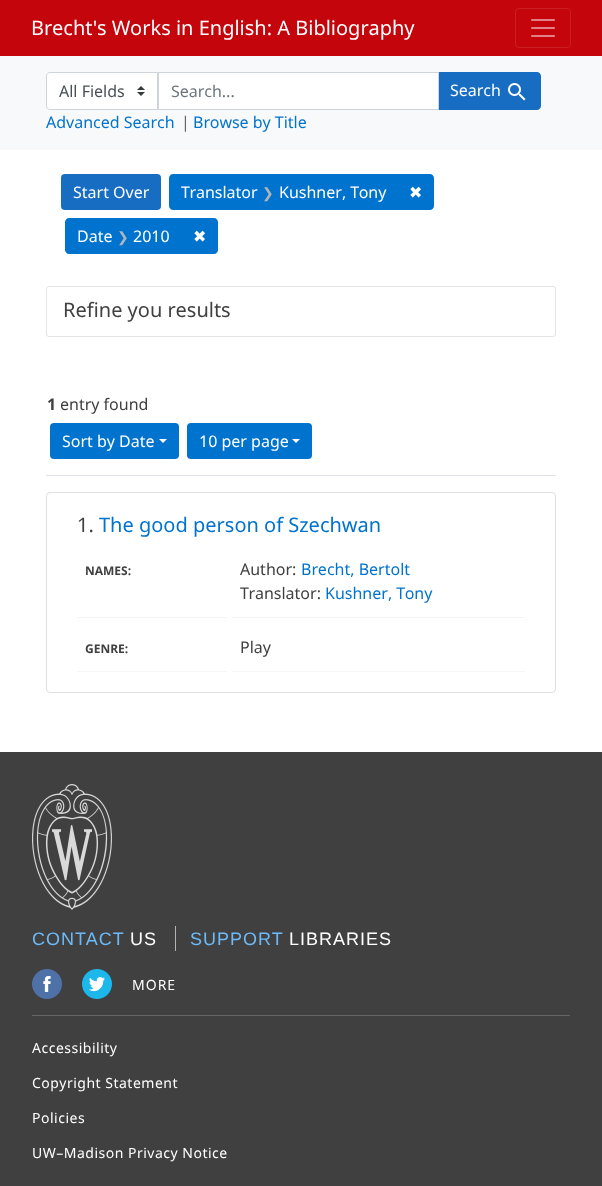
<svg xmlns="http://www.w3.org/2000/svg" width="602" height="1186">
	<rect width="100%" height="100%" fill="#FFFFFF" />
	<rect x="0" y="0" width="602" height="56" fill="#C5050C" />
	<text x="31" y="35" font-family="Noto Sans" font-size="20" fill="#FFFFFF">Brecht's Works in English: A Bibliography</text>
	<rect x="515.5" y="8.5" width="55" height="39" rx="3.5" fill="none" stroke="#CB1E24" />
	<image x="531" y="19" width="24" height="18" href="assets/img1.png" />
	<rect x="0" y="56" width="602" height="94" fill="#F8F9FA" />
	<path d="M50 72H158V110H50C48 110 46 108 46 106V76C46 74 48 72 50 72Z" fill="#FFFFFF" />
	<image x="137" y="86" width="8" height="10" href="assets/img2.png" />
	<path d="M50 72.5H157.5V109.5H50C48 109.5 46.5 108 46.5 106V76C46.5 74 48 72.5 50 72.5Z" fill="none" stroke="#CED4DA" />
	<text x="59" y="97" font-family="Noto Sans" font-size="16" fill="#495057">All Fields</text>
	<path d="M438 72H537C539 72 541 74 541 76V106C541 108 539 110 537 110H438Z" fill="#176DC2" />
	<rect x="158.5" y="72.5" width="280" height="37" fill="#FFFFFF" stroke="#CED4DA" />
	<text x="171" y="97" font-family="Noto Sans" font-size="16" fill="#6C757D">Search...</text>
	<text x="450" y="96" font-family="Noto Sans" font-size="16" fill="#FFFFFF">Search</text>
	<image x="508" y="83" width="18" height="18" href="assets/img3.png" />
	<text x="46" y="128" font-family="Noto Sans" font-size="16" fill="#0073CE">Advanced Search</text>
	<text x="181" y="128" font-family="Noto Sans" font-size="16" fill="#656565">|</text>
	<text x="193" y="128" font-family="Noto Sans" font-size="16" fill="#0073CE">Browse by Title</text>
	<rect x="61" y="174" width="100" height="36" rx="4" fill="#176DC2" />
	<text x="73" y="198" font-family="Noto Sans" font-size="16" fill="#FFFFFF">Start Over</text>
	<path d="M173 174H398V210H173C171 210 169 208 169 206V178C169 176 171 174 173 174Z" fill="#0073CE" />
	<text x="181" y="198" font-family="Noto Sans" font-size="16" fill="#FFFFFF">Translator</text>
	<text x="262" y="198" font-family="DejaVu Sans" font-size="14" fill="#ADB5BD">❯</text>
	<text x="279" y="198" font-family="Noto Sans" font-size="16" fill="#FFFFFF">Kushner, Tony</text>
	<path d="M397 174H430C432 174 434 176 434 178V206C434 208 432 210 430 210H397Z" fill="#0073CE" />
	<text x="409" y="198" font-family="DejaVu Sans" font-size="16" fill="#FFFFFF">✖</text>
	<path d="M69 218H182V254H69C67 254 65 252 65 250V222C65 220 67 218 69 218Z" fill="#0073CE" />
	<text x="77" y="242" font-family="Noto Sans" font-size="16" fill="#FFFFFF">Date</text>
	<text x="117" y="242" font-family="DejaVu Sans" font-size="14" fill="#ADB5BD">❯</text>
	<text x="133" y="242" font-family="Noto Sans" font-size="16" fill="#FFFFFF">2010</text>
	<path d="M181 218H214C216 218 218 220 218 222V250C218 252 216 254 214 254H181Z" fill="#0073CE" />
	<text x="193" y="242" font-family="DejaVu Sans" font-size="16" fill="#FFFFFF">✖</text>
	<rect x="46.5" y="286.5" width="509" height="50" rx="2.5" fill="none" stroke="#E5E5E5" />
	<text x="63" y="317" font-family="Noto Sans" font-size="20" fill="#404040">Refine you results</text>
	<rect x="46" y="475" width="510" height="1" fill="#DEE2E6" />
	<text x="47" y="410" font-family="Noto Sans" font-size="16" font-weight="700" fill="#404040">1</text>
	<text x="60" y="410" font-family="Noto Sans" font-size="16" fill="#404040">entry found</text>
	<rect x="50" y="423" width="129" height="36" rx="4" fill="#0073CE" />
	<text x="62" y="447" font-family="Noto Sans" font-size="16" fill="#FFFFFF">Sort by Date</text>
	<path d="M159 439H167L163 443Z" fill="#FFFFFF" />
	<rect x="187" y="423" width="125" height="36" rx="4" fill="#0073CE" />
	<text x="199" y="447" font-family="Noto Sans" font-size="16" fill="#FFFFFF">10 per page</text>
	<path d="M292 439H300L296 443Z" fill="#FFFFFF" />
	<rect x="46.5" y="492.5" width="509" height="200" rx="3.5" fill="none" stroke="#E0E0E0" />
	<text x="77" y="532" font-family="Noto Sans" font-size="20" fill="#404040">1.</text>
	<text x="99" y="532" font-family="Noto Sans" font-size="20" fill="#0073CE">The good person of Szechwan</text>
	<rect x="77" y="617" width="150" height="1" fill="#F5F5F5" />
	<text x="85" y="575" font-family="Noto Sans" font-size="12" font-weight="700" fill="#404040">NAMES:</text>
	<rect x="232" y="617" width="293" height="1" fill="#F5F5F5" />
	<text x="240" y="575" font-family="Noto Sans" font-size="16" fill="#404040">Author:</text>
	<text x="301" y="575" font-family="Noto Sans" font-size="16" fill="#0073CE">Brecht, Bertolt</text>
	<text x="240" y="599" font-family="Noto Sans" font-size="16" fill="#404040">Translator:</text>
	<text x="325" y="599" font-family="Noto Sans" font-size="16" fill="#0073CE">Kushner, Tony</text>
	<rect x="77" y="671" width="150" height="1" fill="#F5F5F5" />
	<text x="85" y="653" font-family="Noto Sans" font-size="12" font-weight="700" fill="#404040">GENRE:</text>
	<rect x="232" y="671" width="293" height="1" fill="#F5F5F5" />
	<text x="240" y="653" font-family="Noto Sans" font-size="16" fill="#404040">Play</text>
	<rect x="0" y="752" width="602" height="434" fill="#404040" />
	<image x="32" y="784" width="80" height="126" href="assets/img4.png" />
	<text x="32" y="945" font-family="Liberation Sans" font-size="18" letter-spacing="1" fill="#6DBAF6">CONTACT</text>
	<text x="130" y="945" font-family="Liberation Sans" font-size="18" letter-spacing="1" fill="#FFFFFF">US</text>
	<rect x="175" y="926" width="1" height="25" fill="#B3B3B3" />
	<text x="190" y="945" font-family="Liberation Sans" font-size="18" letter-spacing="1" fill="#6DBAF6">SUPPORT</text>
	<text x="289" y="945" font-family="Liberation Sans" font-size="18" letter-spacing="1" fill="#FFFFFF">LIBRARIES</text>
	<image x="32" y="969" width="30" height="30" href="assets/img5.png" />
	<image x="82" y="969" width="30" height="30" href="assets/img6.png" />
	<text x="132" y="990" font-family="Noto Sans" font-size="14" letter-spacing="1" fill="#FFFFFF">MORE</text>
	<rect x="32" y="1015" width="538" height="1" fill="#666666" />
	<g font-family="Noto Sans" font-size="14" letter-spacing="0.5" fill="#FFFFFF">
		<text x="32" y="1053">Accessibility</text>
		<text x="32" y="1088">Copyright Statement</text>
		<text x="32" y="1123">Policies</text>
		<text x="32" y="1158">UW–Madison Privacy Notice</text>
	</g>
</svg>
